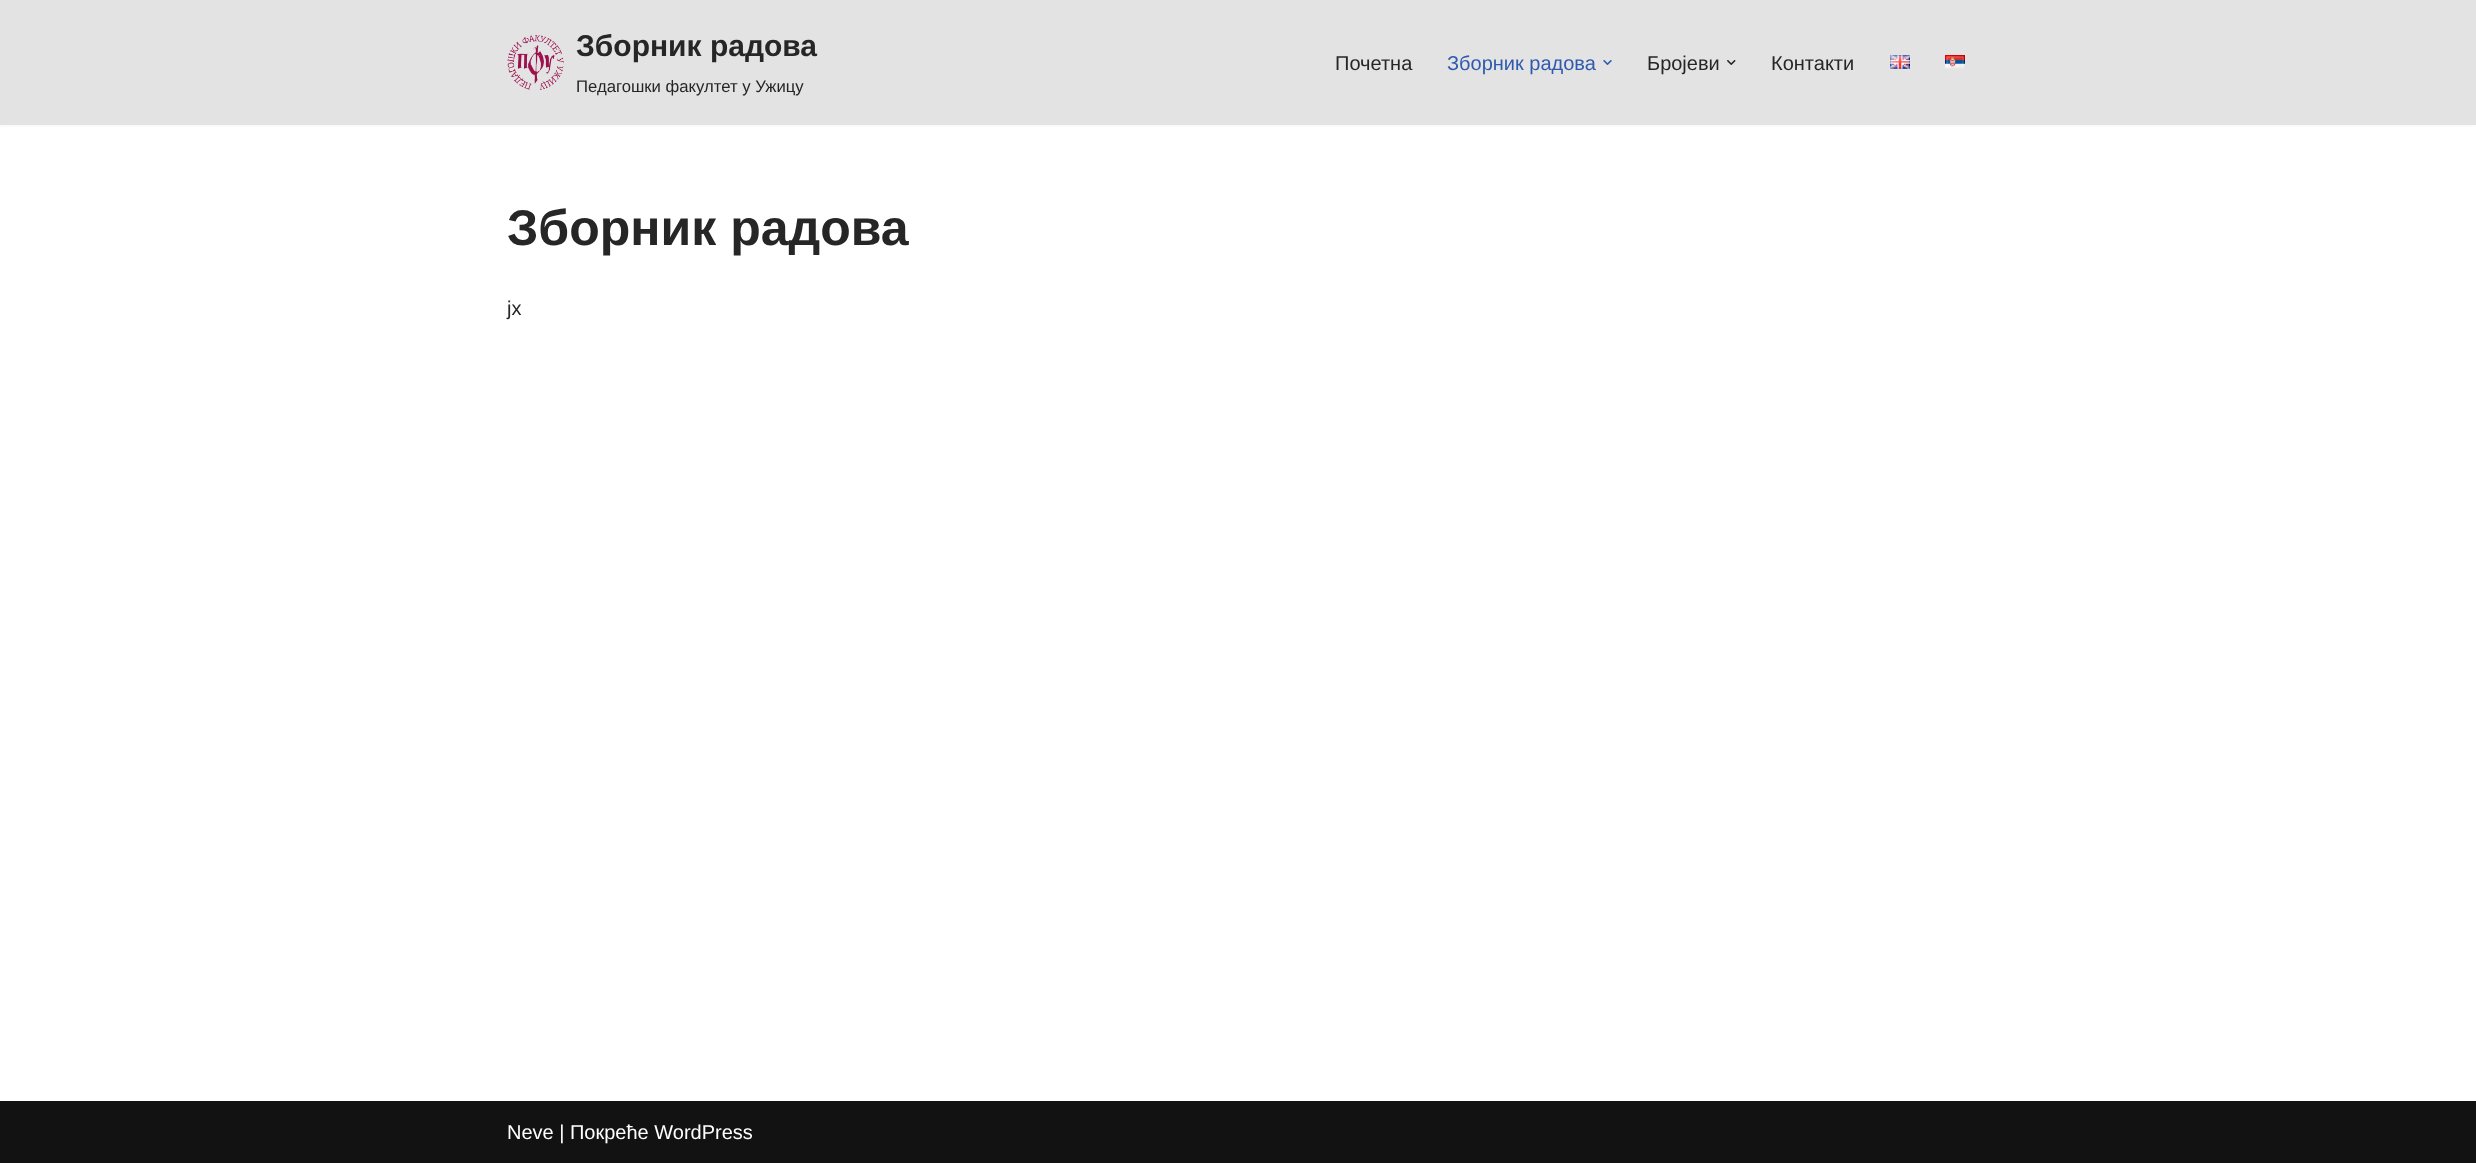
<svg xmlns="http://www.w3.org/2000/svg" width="2476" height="1163">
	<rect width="100%" height="100%" fill="#FFFFFF" />
	<rect x="0" y="-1" width="2476" height="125" fill="#000000" fill-opacity="0.1" filter="blur(2px)" />
	<rect x="0" y="0" width="2476" height="125" fill="#E3E3E3" />
	<image x="507" y="35" width="57" height="55" href="assets/img1.png" />
	<text x="576" y="56" font-family="Liberation Sans" font-size="30" font-weight="700" fill="#272626">Зборник радова</text>
	<text x="576" y="92" font-family="Liberation Sans" font-size="16.7" fill="#272626">Педагошки факултет у Ужицу</text>
	<text x="1335" y="70" font-family="Liberation Sans" font-size="20" fill="#272626">Почетна</text>
	<text x="1447" y="70" font-family="Liberation Sans" font-size="20" fill="#2F5AAE">Зборник радова</text>
	<image x="1603" y="60" width="9" height="5" href="assets/img2.png" />
	<text x="1647" y="70" font-family="Liberation Sans" font-size="20" fill="#272626">Бројеви</text>
	<image x="1727" y="60" width="9" height="5" href="assets/img3.png" />
	<text x="1771" y="70" font-family="Liberation Sans" font-size="20" fill="#272626">Контакти</text>
	<image x="1890" y="55" width="20" height="14" href="assets/img4.png" />
	<image x="1945" y="55" width="20" height="14" href="assets/img5.png" />
	<text x="507" y="245" font-family="Liberation Sans" font-size="50" font-weight="700" fill="#272626">Зборник радова</text>
	<text x="507" y="315" font-family="Liberation Sans" font-size="20" fill="#272626">јх</text>
	<rect x="0" y="1101" width="2476" height="62" fill="#121212" />
	<text x="507" y="1139" font-family="Liberation Sans" font-size="20" fill="#FFFFFF">Neve | Покреће WordPress</text>
</svg>
